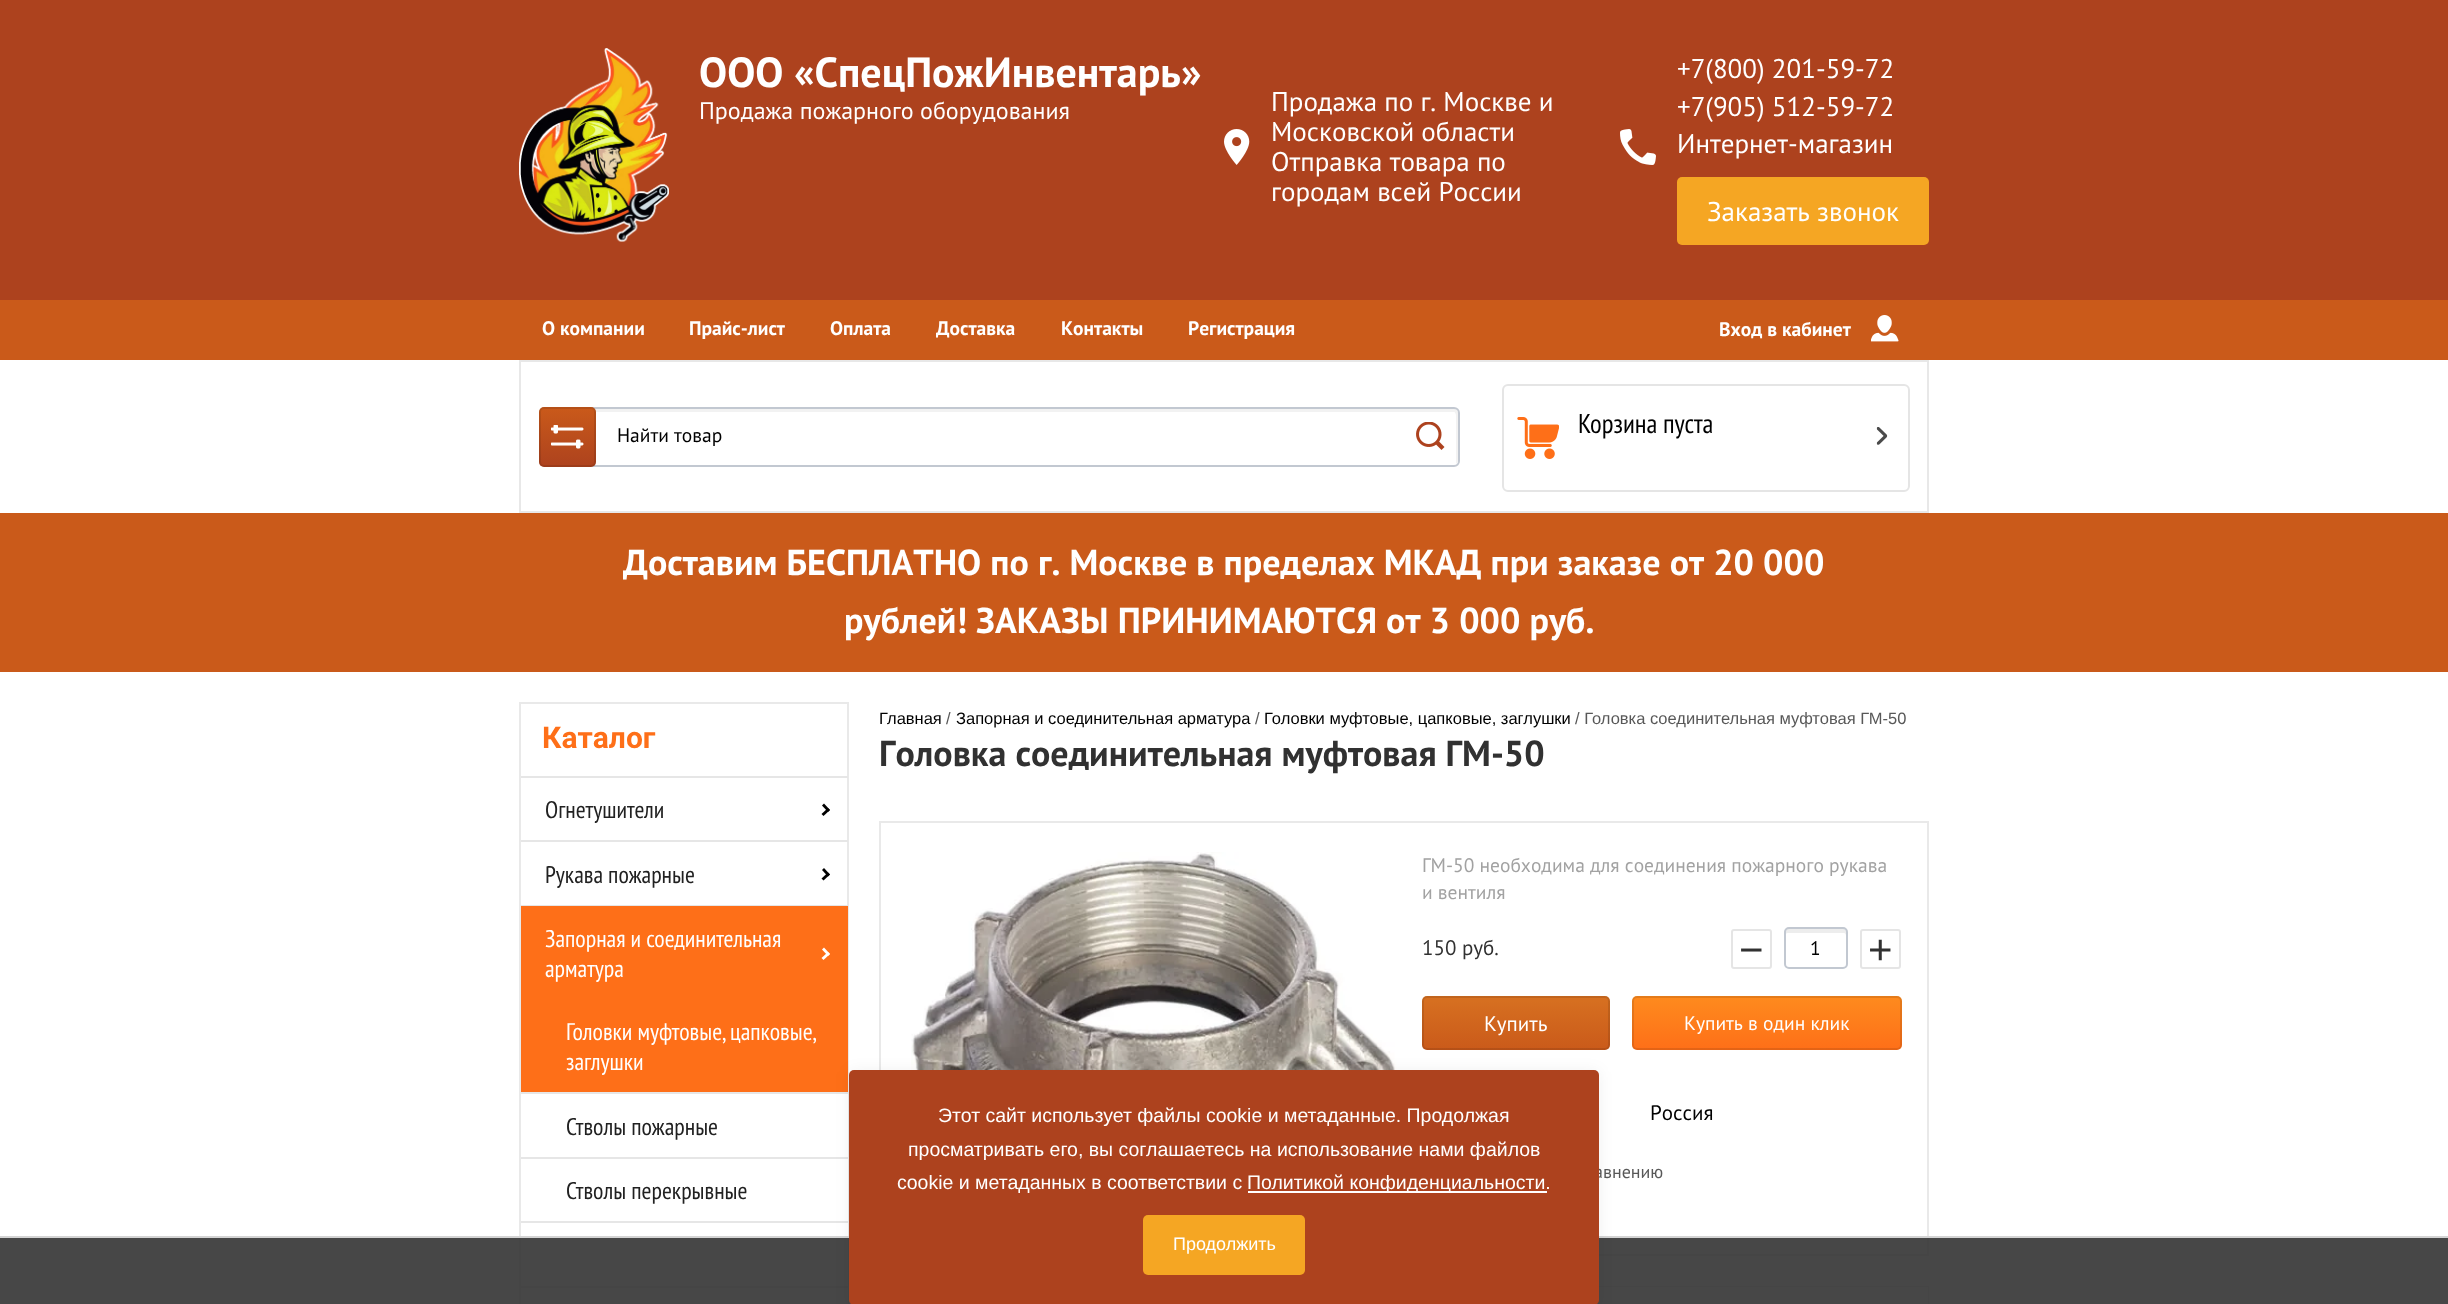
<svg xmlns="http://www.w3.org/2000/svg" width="2448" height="1304">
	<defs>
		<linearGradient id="g1" gradientUnits="userSpaceOnUse" x1="567" y1="407" x2="567" y2="467"><stop offset="0" stop-color="#CA5A1A" /><stop offset="1" stop-color="#AD421E" /></linearGradient>
		<linearGradient id="g2" gradientUnits="userSpaceOnUse" x1="1516" y1="996" x2="1516" y2="1050"><stop offset="0" stop-color="#D77121" /><stop offset="1" stop-color="#CA5A1A" /></linearGradient>
		<linearGradient id="g3" gradientUnits="userSpaceOnUse" x1="1767" y1="996" x2="1767" y2="1050"><stop offset="0" stop-color="#FE8B1E" /><stop offset="1" stop-color="#FE6F18" /></linearGradient>
	</defs>
	<rect width="100%" height="100%" fill="#FFFFFF" />
	<rect x="0" y="0" width="2448" height="300" fill="#AD421E" />
	<image x="519" y="48" width="150" height="194" href="assets/img1.png" />
	<text x="699" y="87" font-family="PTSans" font-size="42" font-weight="700" fill="#FFFFFF">ООО «СпецПожИнвентарь»</text>
	<text x="699" y="119" font-family="PTSans" font-size="24" fill="#FFFFFF">Продажа пожарного оборудования</text>
	<image x="1224" y="129" width="26" height="36" href="assets/img2.png" />
	<g font-family="PTSans" font-size="27" fill="#FFFFFF">
		<text x="1271" y="111">Продажа по г. Москве и</text>
		<text x="1271" y="141">Московской области</text>
		<text x="1271" y="171">Отправка товара по</text>
		<text x="1271" y="201">городам всей России</text>
		<text x="1677" y="78">+7(800) 201-59-72</text>
		<text x="1677" y="116">+7(905) 512-59-72</text>
	</g>
	<image x="1620" y="129" width="36" height="36" href="assets/img3.png" />
	<text x="1677" y="153" font-family="PTSans" font-size="27" fill="#FFFFFF">Интернет-магазин</text>
	<rect x="1677" y="177" width="252" height="68" rx="5" fill="#F5A623" />
	<text x="1707" y="221" font-family="PTSans" font-size="27" fill="#FFFFFF">Заказать звонок</text>
	<rect x="0" y="300" width="2448" height="60" fill="#CA5A1A" />
	<g font-family="PTSans" font-size="19.5" font-weight="700" fill="#FFFFFF">
		<text x="542" y="335">О компании</text>
		<text x="689" y="335">Прайс-лист</text>
		<text x="830" y="335">Оплата</text>
		<text x="936" y="335">Доставка</text>
		<text x="1061" y="335">Контакты</text>
		<text x="1188" y="335">Регистрация</text>
		<text x="1719" y="336">Вход в кабинет</text>
	</g>
	<image x="1871" y="315" width="28" height="27" href="assets/img4.png" />
	<rect x="520" y="361" width="1408" height="151" fill="none" stroke="#E8E8E8" stroke-width="2" />
	<path d="M544 412H1454C1455 412 1456 414 1456 416V464C1457 463 1458 462 1458 460V413C1458 410 1456 408 1453 408H545C542 408 540 410 540 413V460C540 462 541 463 542 464V416C542 414 543 412 544 412Z" fill="#F2F2F2" />
	<rect x="540" y="408" width="919" height="58" rx="5" fill="none" stroke="#C2C8D1" stroke-width="2" />
	<rect x="539" y="407" width="57" height="60" rx="5" fill="url(#g1)" />
	<rect x="540" y="408" width="55" height="58" rx="4" fill="none" stroke="#000000" stroke-opacity="0.1" stroke-width="2" />
	<image x="551" y="425" width="33" height="24" href="assets/img5.png" />
	<text x="617" y="442" font-family="PTSans" font-size="19.5" fill="#000000">Найти товар</text>
	<image x="1416" y="422" width="29" height="28" href="assets/img6.png" />
	<image x="1517" y="417" width="42" height="42" href="assets/img7.png" />
	<rect x="1503" y="385" width="406" height="106" rx="5" fill="none" stroke="#E5E5E5" stroke-width="2" />
	<text x="1578" y="433" font-family="PT Sans Narrow" font-size="27" fill="#000000">Корзина пуста</text>
	<image x="1876" y="427" width="12" height="18" href="assets/img8.png" />
	<rect x="0" y="513" width="2448" height="159" fill="#CA5A1A" />
	<g font-family="PTSans" font-size="36" font-weight="700" fill="#FFFFFF">
		<text x="623" y="575">Доставим БЕСПЛАТНО по г. Москве в пределах МКАД при заказе от 20 000</text>
		<text x="844" y="633">рублей! ЗАКАЗЫ ПРИНИМАЮТСЯ от 3 000 руб.</text>
	</g>
	<rect x="520" y="703" width="328" height="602" fill="none" stroke="#E9E9E9" stroke-width="2" />
	<text x="542" y="748" font-family="Roboto" font-size="30" font-weight="700" fill="#FE6F18">Каталог</text>
	<rect x="521" y="776" width="327" height="2" fill="#E6E6E6" />
	<text x="545" y="818" font-family="PT Sans Narrow" font-size="24" fill="#212121">Огнетушители</text>
	<path d="M830 810L823.5 816L821.5 814L828 808Z" fill="#000000" />
	<path d="M830 810L828 812L822 805.5L824 803.5Z" fill="#000000" />
	<rect x="521" y="840" width="327" height="2" fill="#E6E6E6" />
	<text x="545" y="883" font-family="PT Sans Narrow" font-size="24" fill="#212121">Рукава пожарные</text>
	<path d="M830 874.5L823.5 880.5L821.5 878.5L828 872.5Z" fill="#000000" />
	<path d="M830 874.5L828 876.5L822 870L824 868Z" fill="#000000" />
	<rect x="521" y="905" width="327" height="1" fill="#E6E6E6" />
	<rect x="521" y="906" width="327" height="186" fill="#FE6F18" />
	<text x="545" y="947" font-family="PT Sans Narrow" font-size="24" fill="#FFFFFF">Запорная и соединительная</text>
	<path d="M830 954L823.5 960L821.5 958L828 952Z" fill="#FFFFFF" />
	<path d="M830 954L828 956L822 949.5L824 947.5Z" fill="#FFFFFF" />
	<text x="545" y="977" font-family="PT Sans Narrow" font-size="24" fill="#FFFFFF">арматура</text>
	<rect x="847" y="1094" width="1" height="210" fill="#FFFFFF" />
	<g font-family="PT Sans Narrow" font-size="24" fill="#FFFFFF">
		<text x="566" y="1040">Головки муфтовые, цапковые,</text>
		<text x="566" y="1070">заглушки</text>
	</g>
	<rect x="521" y="1092" width="327" height="2" fill="#E6E6E6" />
	<text x="566" y="1135" font-family="PT Sans Narrow" font-size="24" fill="#212121">Стволы пожарные</text>
	<rect x="521" y="1157" width="327" height="2" fill="#E6E6E6" />
	<text x="566" y="1199" font-family="PT Sans Narrow" font-size="24" fill="#212121">Стволы перекрывные</text>
	<rect x="521" y="1221" width="327" height="2" fill="#E6E6E6" />
	<rect x="521" y="1286" width="327" height="2" fill="#E6E6E6" />
	<text x="879" y="724" font-family="Liberation Sans" font-size="16.5" fill="#000000">Главная</text>
	<text x="946" y="724" font-family="Liberation Sans" font-size="16.5" fill="#585858">/</text>
	<text x="956" y="724" font-family="Liberation Sans" font-size="16.5" fill="#000000">Запорная и соединительная арматура</text>
	<text x="1255" y="724" font-family="Liberation Sans" font-size="16.5" fill="#585858">/</text>
	<text x="1264" y="724" font-family="Liberation Sans" font-size="16.5" fill="#000000">Головки муфтовые, цапковые, заглушки</text>
	<text x="1575" y="724" font-family="Liberation Sans" font-size="16.5" fill="#585858">/ Головка соединительная муфтовая ГМ-50</text>
	<text x="879" y="766" font-family="PTSans" font-size="36" font-weight="700" fill="#313131">Головка соединительная муфтовая ГМ-50</text>
	<rect x="880" y="822" width="1048" height="433" fill="none" stroke="#E9E9E9" stroke-width="2" />
	<image x="911" y="852" width="486" height="218" href="assets/img9.png" />
	<g font-family="PTSans" font-size="19.5" fill="#A2A2A2">
		<text x="1422" y="872">ГМ-50 необходима для соединения пожарного рукава</text>
		<text x="1422" y="899">и вентиля</text>
	</g>
	<text x="1422" y="955" font-family="PTSans" font-size="21" fill="#313131">150 руб.</text>
	<rect x="1732" y="930" width="39" height="38" rx="2" fill="none" stroke="#E5E5E5" stroke-width="2" />
	<text x="1739" y="964" font-family="Liberation Sans" font-size="42" fill="#313131">−</text>
	<path d="M1788 933H1844C1845 933 1846 934 1846 936V967C1847 967 1847 966 1847 965V932C1847 930 1846 929 1844 929H1788C1786 929 1785 930 1785 932V936C1785 934 1786 933 1788 933Z" fill="#EDEDED" />
	<rect x="1785" y="928" width="62" height="40" rx="4" fill="none" stroke="#C2C8D1" stroke-width="2" />
	<text x="1810" y="955" font-family="PTSans" font-size="19.5" fill="#000000">1</text>
	<rect x="1861" y="930" width="39" height="38" rx="2" fill="none" stroke="#E5E5E5" stroke-width="2" />
	<text x="1868" y="964" font-family="Liberation Sans" font-size="42" fill="#313131">+</text>
	<rect x="1422" y="996" width="188" height="54" rx="5" fill="url(#g2)" />
	<rect x="1423" y="997" width="186" height="52" rx="4" fill="none" stroke="#000000" stroke-opacity="0.1" stroke-width="2" />
	<text x="1484" y="1031" font-family="PTSans" font-size="21" fill="#FFFFFF">Купить</text>
	<rect x="1632" y="996" width="270" height="54" rx="5" fill="url(#g3)" />
	<rect x="1633" y="997" width="268" height="52" rx="4" fill="none" stroke="#000000" stroke-opacity="0.1" stroke-width="2" />
	<text x="1684" y="1030" font-family="PTSans" font-size="19.5" fill="#FFFFFF">Купить в один клик</text>
	<text x="1650" y="1120" font-family="PTSans" font-size="21" fill="#000000">Россия</text>
	<text x="1594" y="1178" font-family="PTSans" font-size="18" fill="#585858">авнению</text>
	<path d="M879 1286H1929L1928 1287H880Z" fill="#E8E8E8" />
	<path d="M1929 1286V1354H1928V1287Z" fill="#000000" fill-opacity="0.09" />
	<rect x="0" y="1238" width="2448" height="66" fill="#333333" fill-opacity="0.9" />
	<rect x="0" y="1236" width="2448" height="2" fill="#D4D4D4" />
	<rect x="849" y="1071" width="750" height="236" rx="5" fill="#000000" fill-opacity="0.06" filter="blur(7.5px)" />
	<rect x="849" y="1070" width="750" height="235" rx="5" fill="#AD421E" />
	<g font-family="Liberation Sans" font-size="19.5" fill="#FFFFFF">
		<text x="938" y="1122">Этот сайт использует файлы cookie и метаданные. Продолжая</text>
		<text x="908" y="1156">просматривать его, вы соглашаетесь на использование нами файлов</text>
		<text x="897" y="1189">cookie и метаданных в соответствии с</text>
	</g>
	<rect x="1248" y="1191" width="299" height="2" fill="#FFFFFF" />
	<text x="1247" y="1189" font-family="Liberation Sans" font-size="19.5" fill="#FFFFFF">Политикой конфиденциальности.</text>
	<rect x="1143" y="1215" width="162" height="60" rx="5" fill="#F5A623" />
	<text x="1173" y="1250" font-family="Liberation Sans" font-size="18" fill="#FFFFFF">Продолжить</text>
</svg>
